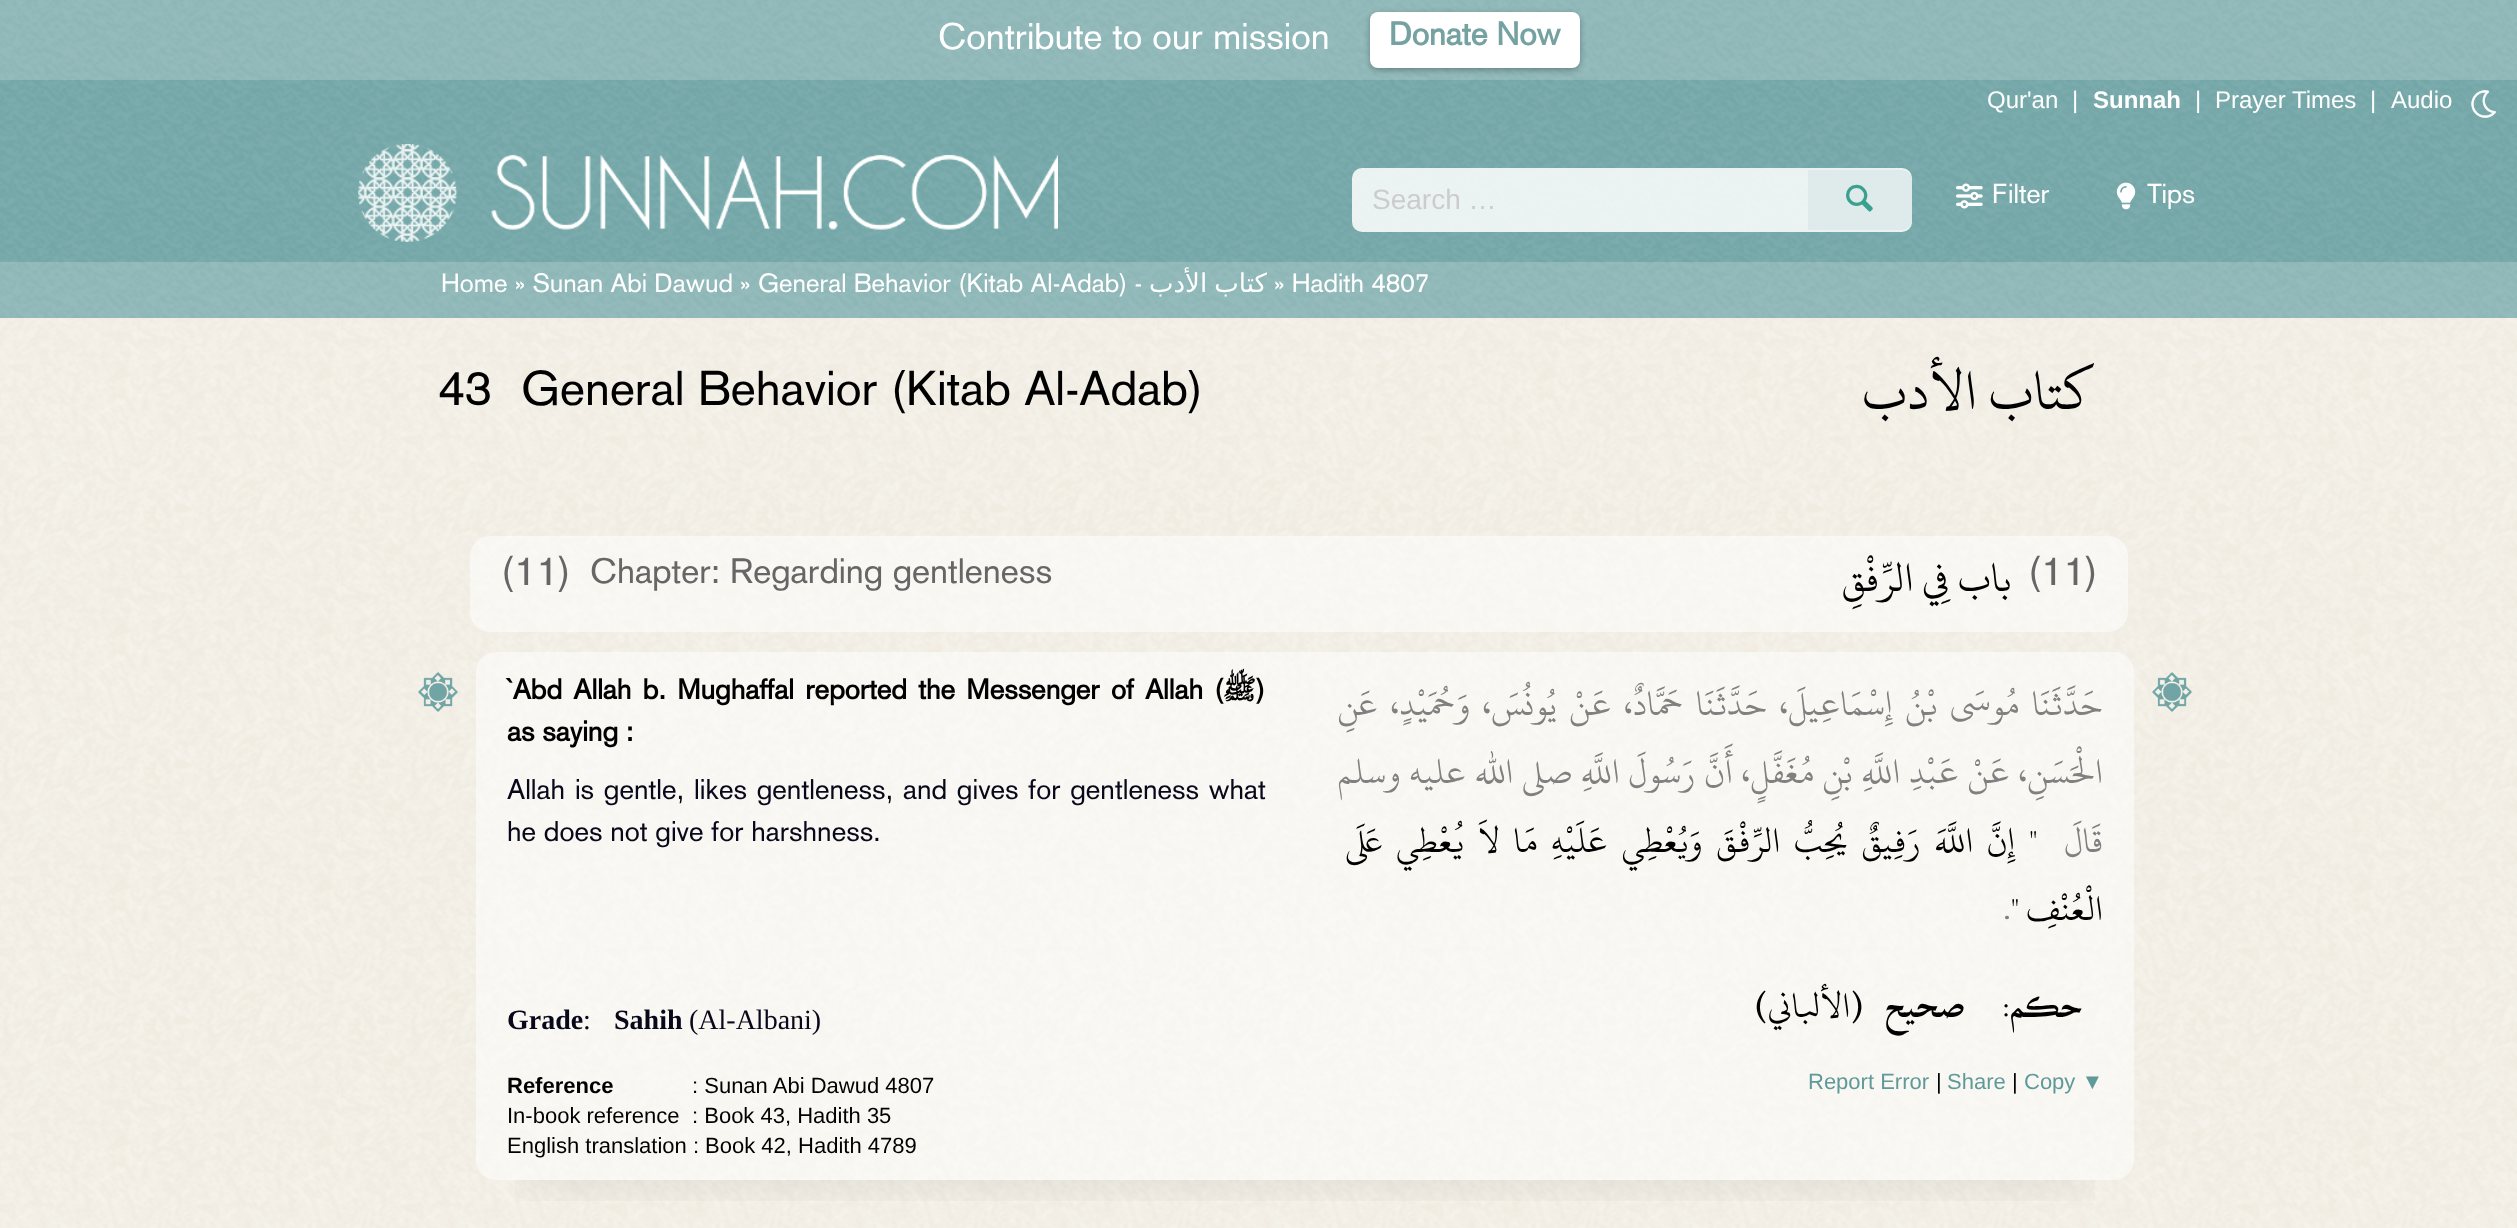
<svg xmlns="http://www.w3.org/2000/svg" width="2517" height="1228">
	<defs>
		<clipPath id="clip1"><rect x="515" y="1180" width="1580" height="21" /></clipPath>
	</defs>
	<rect width="100%" height="100%" fill="#FFFFFF" />
	<image x="0" y="318" width="2517" height="910" href="assets/img1.png" />
	<image x="0" y="0" width="2517" height="318" href="assets/img2.png" />
	<rect x="0" y="0" width="2517" height="80" fill="#FBFAF8" fill-opacity="0.2" />
	<text x="938" y="49" font-family="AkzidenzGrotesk" font-size="36.4" fill="#FFFFFF">Contribute to our mission</text>
	<rect x="1370" y="14" width="210" height="56" rx="8" fill="#000000" fill-opacity="0.3" filter="blur(3px)" />
	<rect x="1370" y="12" width="210" height="56" rx="8" fill="#FFFFFF" />
	<text x="1389" y="45" font-family="AkzidenzGrotesk" font-size="32.25" font-weight="700" fill="#75A1A1">Donate Now</text>
	<g font-family="Liberation Sans" font-size="24" fill="#FFFFFF">
		<text x="1987" y="108">Qur'an</text>
		<text x="2072" y="108">|</text>
	</g>
	<text x="2093" y="108" font-family="Liberation Sans" font-size="24" font-weight="700" fill="#FFFFFF">Sunnah</text>
	<g font-family="Liberation Sans" font-size="24" fill="#FFFFFF">
		<text x="2195" y="108">|</text>
		<text x="2215" y="108">Prayer Times</text>
		<text x="2370" y="108">|</text>
		<text x="2391" y="108">Audio</text>
	</g>
	<image x="2471" y="90" width="25" height="28" href="assets/img3.png" />
	<image x="358" y="144" width="700" height="98" href="assets/img4.png" />
	<rect x="1352" y="168" width="560" height="64" rx="10" fill="#FFFFFF" fill-opacity="0.85" />
	<text x="1372" y="209" font-family="Liberation Sans" font-size="28" fill="#CCCCCC">Search …</text>
	<path d="M1808 170H1902C1907.5 170 1912 174.5 1912 180V220C1912 225.5 1907.5 230 1902 230H1808Z" fill="#DEEBEA" />
	<text x="1846" y="210" font-family="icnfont" font-size="34" fill="#3BA08F">l</text>
	<image x="1956" y="183" width="27" height="26" href="assets/img5.png" />
	<text x="1992" y="203" font-family="AkzidenzGrotesk" font-size="27" fill="#FFFFFF">Filter</text>
	<image x="2116" y="182" width="20" height="28" href="assets/img6.png" />
	<text x="2147" y="203" font-family="AkzidenzGrotesk" font-size="27" fill="#FFFFFF">Tips</text>
	<rect x="0" y="262" width="2517" height="56" fill="#FBFAF8" fill-opacity="0.2" />
	<text x="441" y="292" font-family="AkzidenzGrotesk" font-size="26" fill="#FFFFFF">Home » Sunan Abi Dawud » General Behavior (Kitab Al-Adab) -</text>
	<text x="1267" y="292" word-spacing="-1" font-family="DejaVu Sans" font-size="26" direction="rtl" fill="#FFFFFF">كتاب الأدب</text>
	<text x="1274" y="292" font-family="AkzidenzGrotesk" font-size="26" fill="#FFFFFF">» Hadith 4807</text>
	<g font-family="AkzidenzGrotesk" font-size="48" fill="#000000">
		<text x="438" y="405">43</text>
		<text x="521" y="405">General Behavior (Kitab Al-Adab)</text>
	</g>
	<text x="2094" y="409" font-family="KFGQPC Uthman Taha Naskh" font-size="60" direction="rtl" fill="#000000">كتاب الأدب</text>
	<rect x="470" y="536" width="1658" height="96" rx="20" fill="#FFFFFF" fill-opacity="0.5" />
	<text x="501" y="585" font-family="AkzidenzGrotesk" font-size="40" fill="#666666">(11)</text>
	<text x="590" y="583" font-family="AkzidenzGrotesk" font-size="34.7" fill="#666666">Chapter: Regarding gentleness</text>
	<text x="2012" y="591" font-family="KFGQPC Uthman Taha Naskh" font-size="44" direction="rtl" fill="#000000">باب فِي الرِّفْقِ</text>
	<text x="2028" y="585" font-family="AkzidenzGrotesk" font-size="40" fill="#666666">(11)</text>
	<g clip-path="url(#clip1)">
		<rect x="518" y="736" width="1574" height="444" fill="#000000" fill-opacity="0.09" filter="blur(28px)" />
	</g>
	<rect x="476" y="652" width="1658" height="528" rx="20" fill="#FFFFFF" fill-opacity="0.5" />
	<image x="418" y="672" width="40" height="40" href="assets/img7.png" />
	<text x="507" y="699" word-spacing="3.5" font-family="AkzidenzGrotesk" font-size="28" font-weight="700" fill="#000000">`Abd Allah b. Mughaffal reported the Messenger of Allah (</text>
	<text x="1256" y="699" font-family="Lateef" font-size="28" font-weight="700" direction="rtl" fill="#000000">ﷺ</text>
	<g font-family="AkzidenzGrotesk" font-size="28" font-weight="700" fill="#000000">
		<text x="1256" y="699">)</text>
		<text x="507" y="741">as saying :</text>
	</g>
	<g font-family="AkzidenzGrotesk" font-size="28" fill="#08081A">
		<text x="507" y="799" word-spacing="2">Allah is gentle, likes gentleness, and gives for gentleness what</text>
		<text x="507" y="841">he does not give for harshness.</text>
	</g>
	<text x="2103" y="715" word-spacing="5" font-family="KFGQPC Uthman Taha Naskh" font-size="38" direction="rtl" fill="#808080">حَدَّثَنَا مُوسَى بْنُ إِسْمَاعِيلَ، حَدَّثَنَا حَمَّادٌ، عَنْ يُونُسَ، وَحُمَيْدٍ، عَنِ</text>
	<image x="2152" y="672" width="40" height="40" href="assets/img8.png" />
	<text x="2103" y="783" word-spacing="1.25" font-family="KFGQPC Uthman Taha Naskh" font-size="38" direction="rtl" fill="#808080">الْحَسَنِ، عَنْ عَبْدِ اللَّهِ بْنِ مُغَفَّلٍ، أَنَّ رَسُولَ اللَّهِ صلى الله عليه وسلم</text>
	<text x="2037" y="852" word-spacing="6.25" font-family="KFGQPC Uthman Taha Naskh" font-size="38" direction="rtl" fill="#000000">" إِنَّ اللَّهَ رَفِيقٌ يُحِبُّ الرِّفْقَ وَيُعْطِي عَلَيْهِ مَا لاَ يُعْطِي عَلَى</text>
	<g font-family="KFGQPC Uthman Taha Naskh" font-size="38" direction="rtl" fill="#808080">
		<text x="2103" y="852" word-spacing="6.25">قَالَ </text>
		<text x="2011" y="920"> .</text>
	</g>
	<text x="2103" y="920" font-family="KFGQPC Uthman Taha Naskh" font-size="38" direction="rtl" fill="#000000">الْعُنْفِ "</text>
	<text x="507" y="1029" font-family="Liberation Serif" font-size="28" font-weight="700" fill="#08081A">Grade</text>
	<text x="583" y="1029" font-family="Liberation Serif" font-size="28" fill="#08081A">:</text>
	<text x="614" y="1029" font-family="Liberation Serif" font-size="28" font-weight="700" fill="#08081A">Sahih</text>
	<text x="689" y="1029" font-family="Liberation Serif" font-size="28" fill="#08081A">(Al-Albani)</text>
	<text x="1863" y="1017" font-family="KFGQPC Uthman Taha Naskh" font-size="38" direction="rtl" fill="#000000">(الألباني)</text>
	<text x="1965" y="1017" font-family="KFGQPC Uthman Taha Naskh" font-size="38" font-weight="700" direction="rtl" fill="#000000">صحيح</text>
	<text x="2002" y="1017" font-family="KFGQPC Uthman Taha Naskh" font-size="38" fill="#000000">:</text>
	<text x="2083" y="1017" font-family="KFGQPC Uthman Taha Naskh" font-size="38" font-weight="700" direction="rtl" fill="#000000">حكم</text>
	<text x="507" y="1093" font-family="Liberation Sans" font-size="22" font-weight="700" fill="#000000">Reference</text>
	<g font-family="Liberation Sans" font-size="22" fill="#000000">
		<text x="692" y="1093">: Sunan Abi Dawud 4807</text>
		<text x="507" y="1123">In-book reference</text>
		<text x="692" y="1123">: Book 43, Hadith 35</text>
		<text x="507" y="1153">English translation : Book 42, Hadith 4789</text>
	</g>
	<text x="1808" y="1089" font-family="Liberation Sans" font-size="22" fill="#5F9999">Report Error</text>
	<text x="1936" y="1089" font-family="Liberation Sans" font-size="22" fill="#000000">|</text>
	<text x="1947" y="1089" font-family="Liberation Sans" font-size="22" fill="#5F9999">Share</text>
	<text x="2012" y="1089" font-family="Liberation Sans" font-size="22" fill="#000000">|</text>
	<text x="2024" y="1089" font-family="Liberation Sans" font-size="22" fill="#5F9999">Copy ▼</text>
</svg>
